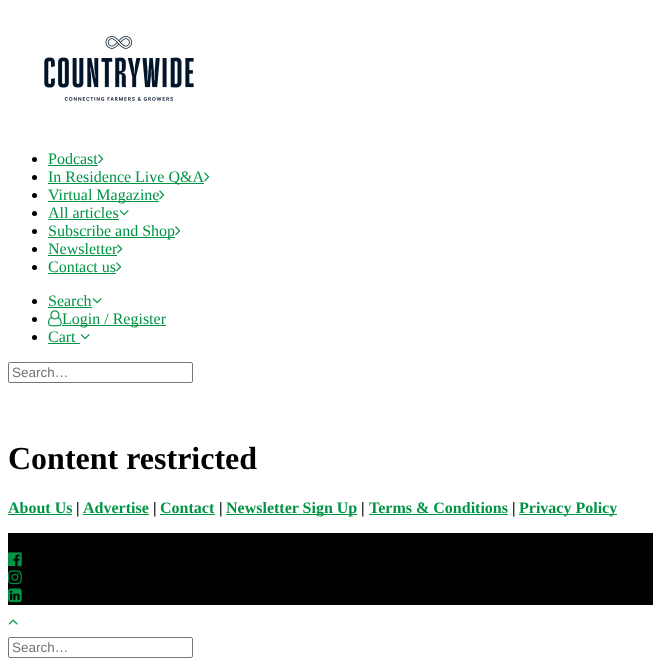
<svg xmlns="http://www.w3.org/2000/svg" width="661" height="672">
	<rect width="100%" height="100%" fill="#FFFFFF" />
	<image x="44" y="36" width="150" height="65" href="assets/img1.png" />
	<circle cx="34.5" cy="159.5" r="2.5" fill="#000000" />
	<text x="48" y="164" font-family="Liberation Serif" font-size="16" fill="#019444">Podcast</text>
	<rect x="48" y="165" width="50" height="1" fill="#019444" />
	<image x="98" y="154" width="6" height="10" href="assets/img2.png" />
	<circle cx="34.5" cy="177.5" r="2.5" fill="#000000" />
	<rect x="48" y="183" width="156" height="1" fill="#019444" />
	<text x="48" y="182" font-family="Liberation Serif" font-size="16" fill="#019444">In Residence Live Q&amp;A</text>
	<image x="204" y="172" width="6" height="10" href="assets/img2.png" />
	<circle cx="34.5" cy="195.5" r="2.5" fill="#000000" />
	<rect x="48" y="201" width="111" height="1" fill="#019444" />
	<text x="48" y="200" font-family="Liberation Serif" font-size="16" fill="#019444">Virtual Magazine</text>
	<image x="159" y="190" width="6" height="10" href="assets/img2.png" />
	<circle cx="34.5" cy="213.5" r="2.5" fill="#000000" />
	<text x="48" y="218" font-family="Liberation Serif" font-size="16" fill="#019444">All articles</text>
	<rect x="48" y="219" width="71" height="1" fill="#019444" />
	<image x="119" y="210" width="10" height="6" href="assets/img3.png" />
	<circle cx="34.5" cy="231.5" r="2.5" fill="#000000" />
	<rect x="48" y="237" width="127" height="1" fill="#019444" />
	<text x="48" y="236" font-family="Liberation Serif" font-size="16" fill="#019444">Subscribe and Shop</text>
	<image x="175" y="226" width="6" height="10" href="assets/img2.png" />
	<circle cx="34.5" cy="249.5" r="2.5" fill="#000000" />
	<text x="48" y="254" font-family="Liberation Serif" font-size="16" fill="#019444">Newsletter</text>
	<rect x="48" y="255" width="69" height="1" fill="#019444" />
	<image x="117" y="244" width="6" height="10" href="assets/img4.png" />
	<circle cx="34.5" cy="267.5" r="2.5" fill="#000000" />
	<text x="48" y="272" font-family="Liberation Serif" font-size="16" fill="#019444">Contact us</text>
	<rect x="48" y="273" width="68" height="1" fill="#019444" />
	<image x="116" y="262" width="6" height="10" href="assets/img2.png" />
	<circle cx="34.5" cy="301.5" r="2.5" fill="#000000" />
	<text x="48" y="306" font-family="Liberation Serif" font-size="16" fill="#019444">Search</text>
	<rect x="48" y="307" width="44" height="1" fill="#019444" />
	<image x="92" y="298" width="10" height="6" href="assets/img3.png" />
	<circle cx="34.5" cy="319.5" r="2.5" fill="#000000" />
	<image x="48" y="310" width="14" height="17" href="assets/img5.png" />
	<rect x="62" y="325" width="104" height="1" fill="#019444" />
	<text x="62" y="324" font-family="Liberation Serif" font-size="16" fill="#019444">Login / Register</text>
	<circle cx="34.5" cy="337.5" r="2.5" fill="#000000" />
	<text x="48" y="342" font-family="Liberation Serif" font-size="16" fill="#019444">Cart</text>
	<rect x="48" y="343" width="32" height="1" fill="#019444" />
	<image x="80" y="334" width="10" height="6" href="assets/img3.png" />
	<rect x="8.5" y="362.5" width="184" height="20" rx="1.5" fill="none" stroke="#767676" />
	<text x="12" y="377" font-family="Liberation Sans" font-size="13.5" fill="#757575">Search…</text>
	<text x="8" y="469" font-family="Liberation Serif" font-size="32" font-weight="700" fill="#000000">Content restricted</text>
	<text x="8" y="513" font-family="Liberation Serif" font-size="16" font-weight="700" fill="#019444">About Us</text>
	<rect x="8" y="514" width="64" height="1" fill="#019444" />
	<text x="76" y="513" font-family="Liberation Serif" font-size="16" font-weight="700" fill="#000000">|</text>
	<text x="83" y="513" font-family="Liberation Serif" font-size="16" font-weight="700" fill="#019444">Advertise</text>
	<rect x="83" y="514" width="66" height="1" fill="#019444" />
	<text x="153" y="513" font-family="Liberation Serif" font-size="16" font-weight="700" fill="#000000">|</text>
	<text x="160" y="513" font-family="Liberation Serif" font-size="16" font-weight="700" fill="#019444">Contact</text>
	<rect x="160" y="514" width="55" height="1" fill="#019444" />
	<text x="219" y="513" font-family="Liberation Serif" font-size="16" font-weight="700" fill="#000000">|</text>
	<rect x="226" y="514" width="131" height="1" fill="#019444" />
	<text x="226" y="513" font-family="Liberation Serif" font-size="16" font-weight="700" fill="#019444">Newsletter Sign Up</text>
	<text x="361" y="513" font-family="Liberation Serif" font-size="16" font-weight="700" fill="#000000">|</text>
	<text x="369" y="513" font-family="Liberation Serif" font-size="16" font-weight="700" fill="#019444">Terms &amp; Conditions</text>
	<rect x="369" y="514" width="139" height="1" fill="#019444" />
	<text x="512" y="513" font-family="Liberation Serif" font-size="16" font-weight="700" fill="#000000">|</text>
	<rect x="519" y="514" width="98" height="1" fill="#019444" />
	<text x="519" y="513" font-family="Liberation Serif" font-size="16" font-weight="700" fill="#019444">Privacy Policy</text>
	<rect x="8" y="533" width="645" height="72" fill="#000000" />
	<image x="8" y="552" width="14" height="15" href="assets/img6.png" />
	<image x="8" y="570" width="14" height="15" href="assets/img7.png" />
	<image x="8" y="588" width="14" height="15" href="assets/img8.png" />
	<image x="8" y="619" width="10" height="6" href="assets/img9.png" />
	<rect x="8.5" y="637.5" width="184" height="20" rx="1.5" fill="none" stroke="#767676" />
	<text x="12" y="652" font-family="Liberation Sans" font-size="13.5" fill="#757575">Search…</text>
</svg>
